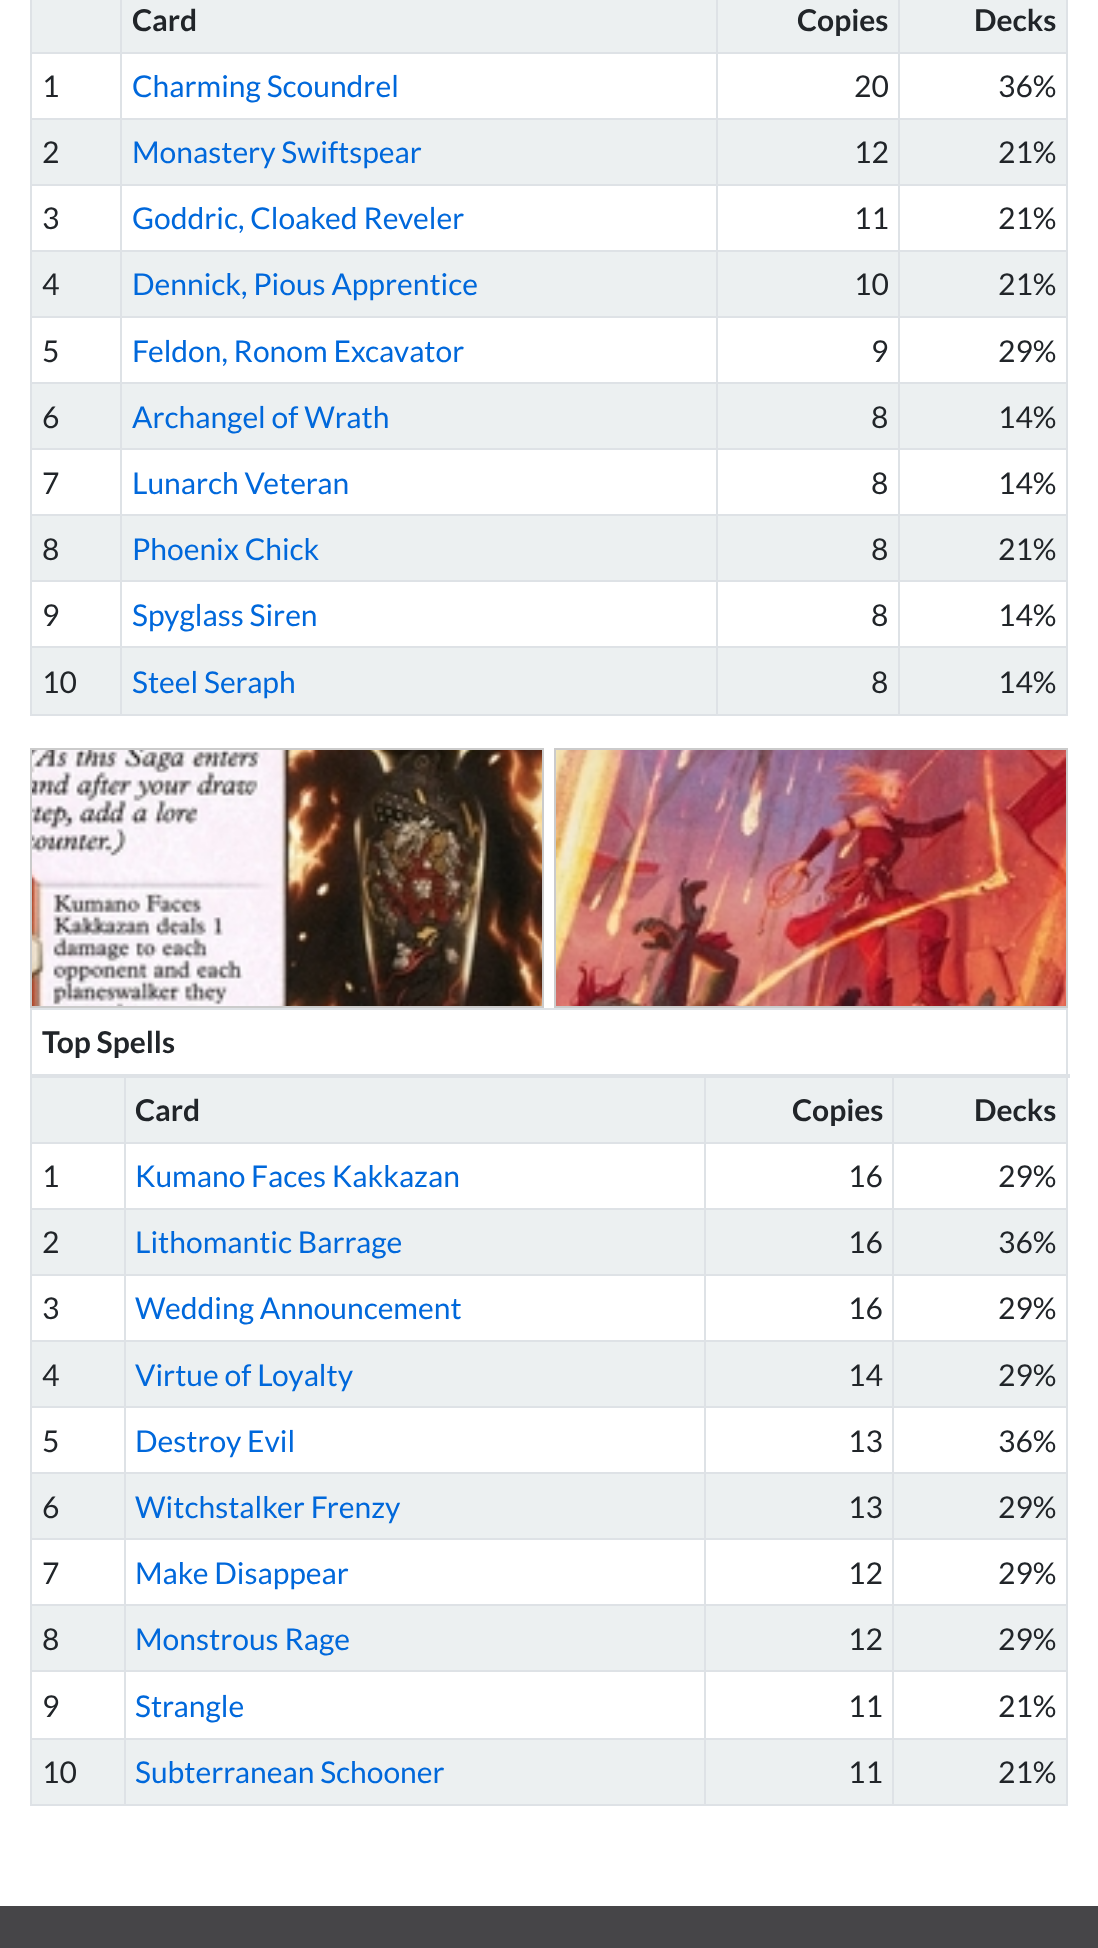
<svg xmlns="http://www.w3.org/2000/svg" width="1098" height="1948">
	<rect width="100%" height="100%" fill="#FFFFFF" />
	<rect x="1066" y="0" width="2" height="716" fill="#DEE2E6" />
	<rect x="30" y="714" width="1038" height="2" fill="#DEE2E6" />
	<rect x="30" y="0" width="2" height="716" fill="#DEE2E6" />
	<rect x="32" y="0" width="1034" height="52" fill="#ECF0F1" />
	<rect x="898" y="52" width="170" height="2" fill="#DEE2E6" />
	<rect x="898" y="118" width="170" height="2" fill="#DEE2E6" />
	<rect x="32" y="120" width="1034" height="64" fill="#ECF0F1" />
	<rect x="898" y="184" width="170" height="2" fill="#DEE2E6" />
	<rect x="898" y="250" width="170" height="2" fill="#DEE2E6" />
	<rect x="32" y="252" width="1034" height="64" fill="#ECF0F1" />
	<rect x="898" y="316" width="170" height="2" fill="#DEE2E6" />
	<rect x="898" y="382" width="170" height="2" fill="#DEE2E6" />
	<rect x="32" y="384" width="1034" height="64" fill="#ECF0F1" />
	<rect x="898" y="448" width="170" height="2" fill="#DEE2E6" />
	<rect x="898" y="514" width="170" height="2" fill="#DEE2E6" />
	<rect x="32" y="516" width="1034" height="64" fill="#ECF0F1" />
	<rect x="898" y="580" width="170" height="2" fill="#DEE2E6" />
	<rect x="898" y="646" width="170" height="2" fill="#DEE2E6" />
	<rect x="32" y="648" width="1034" height="66" fill="#ECF0F1" />
	<rect x="898" y="646" width="2" height="70" fill="#DEE2E6" />
	<rect x="716" y="646" width="184" height="2" fill="#DEE2E6" />
	<rect x="898" y="580" width="2" height="68" fill="#DEE2E6" />
	<rect x="716" y="580" width="184" height="2" fill="#DEE2E6" />
	<rect x="898" y="514" width="2" height="68" fill="#DEE2E6" />
	<rect x="716" y="514" width="184" height="2" fill="#DEE2E6" />
	<rect x="898" y="448" width="2" height="68" fill="#DEE2E6" />
	<rect x="716" y="448" width="184" height="2" fill="#DEE2E6" />
	<rect x="898" y="382" width="2" height="68" fill="#DEE2E6" />
	<rect x="716" y="382" width="184" height="2" fill="#DEE2E6" />
	<rect x="898" y="316" width="2" height="68" fill="#DEE2E6" />
	<rect x="716" y="316" width="184" height="2" fill="#DEE2E6" />
	<rect x="898" y="250" width="2" height="68" fill="#DEE2E6" />
	<rect x="716" y="250" width="184" height="2" fill="#DEE2E6" />
	<rect x="898" y="184" width="2" height="68" fill="#DEE2E6" />
	<rect x="716" y="184" width="184" height="2" fill="#DEE2E6" />
	<rect x="898" y="118" width="2" height="68" fill="#DEE2E6" />
	<rect x="716" y="118" width="184" height="2" fill="#DEE2E6" />
	<rect x="898" y="52" width="2" height="68" fill="#DEE2E6" />
	<rect x="716" y="52" width="184" height="2" fill="#DEE2E6" />
	<rect x="716" y="646" width="2" height="70" fill="#DEE2E6" />
	<rect x="120" y="646" width="598" height="2" fill="#DEE2E6" />
	<rect x="716" y="580" width="2" height="68" fill="#DEE2E6" />
	<rect x="120" y="580" width="598" height="2" fill="#DEE2E6" />
	<rect x="716" y="514" width="2" height="68" fill="#DEE2E6" />
	<rect x="120" y="514" width="598" height="2" fill="#DEE2E6" />
	<rect x="716" y="448" width="2" height="68" fill="#DEE2E6" />
	<rect x="120" y="448" width="598" height="2" fill="#DEE2E6" />
	<rect x="716" y="382" width="2" height="68" fill="#DEE2E6" />
	<rect x="120" y="382" width="598" height="2" fill="#DEE2E6" />
	<rect x="716" y="316" width="2" height="68" fill="#DEE2E6" />
	<rect x="120" y="316" width="598" height="2" fill="#DEE2E6" />
	<rect x="716" y="250" width="2" height="68" fill="#DEE2E6" />
	<rect x="120" y="250" width="598" height="2" fill="#DEE2E6" />
	<rect x="716" y="184" width="2" height="68" fill="#DEE2E6" />
	<rect x="120" y="184" width="598" height="2" fill="#DEE2E6" />
	<rect x="716" y="118" width="2" height="68" fill="#DEE2E6" />
	<rect x="120" y="118" width="598" height="2" fill="#DEE2E6" />
	<rect x="716" y="52" width="2" height="68" fill="#DEE2E6" />
	<rect x="120" y="52" width="598" height="2" fill="#DEE2E6" />
	<rect x="120" y="646" width="2" height="70" fill="#DEE2E6" />
	<rect x="30" y="646" width="92" height="2" fill="#DEE2E6" />
	<rect x="120" y="580" width="2" height="68" fill="#DEE2E6" />
	<rect x="30" y="580" width="92" height="2" fill="#DEE2E6" />
	<rect x="120" y="514" width="2" height="68" fill="#DEE2E6" />
	<rect x="30" y="514" width="92" height="2" fill="#DEE2E6" />
	<rect x="120" y="448" width="2" height="68" fill="#DEE2E6" />
	<rect x="30" y="448" width="92" height="2" fill="#DEE2E6" />
	<rect x="120" y="382" width="2" height="68" fill="#DEE2E6" />
	<rect x="30" y="382" width="92" height="2" fill="#DEE2E6" />
	<rect x="120" y="316" width="2" height="68" fill="#DEE2E6" />
	<rect x="30" y="316" width="92" height="2" fill="#DEE2E6" />
	<rect x="120" y="250" width="2" height="68" fill="#DEE2E6" />
	<rect x="30" y="250" width="92" height="2" fill="#DEE2E6" />
	<rect x="120" y="184" width="2" height="68" fill="#DEE2E6" />
	<rect x="30" y="184" width="92" height="2" fill="#DEE2E6" />
	<rect x="120" y="118" width="2" height="68" fill="#DEE2E6" />
	<rect x="30" y="118" width="92" height="2" fill="#DEE2E6" />
	<rect x="120" y="52" width="2" height="68" fill="#DEE2E6" />
	<rect x="30" y="52" width="92" height="2" fill="#DEE2E6" />
	<rect x="120" y="0" width="2" height="54" fill="#DEE2E6" />
	<text x="132" y="31" font-family="Lato" font-size="30" font-weight="700" fill="#212529">Card</text>
	<rect x="716" y="0" width="2" height="54" fill="#DEE2E6" />
	<text x="797" y="31" font-family="Lato" font-size="30" font-weight="700" fill="#212529">Copies</text>
	<rect x="898" y="0" width="2" height="54" fill="#DEE2E6" />
	<text x="974" y="31" font-family="Lato" font-size="30" font-weight="700" fill="#212529">Decks</text>
	<text x="42" y="97" font-family="Lato" font-size="30" fill="#212529">1</text>
	<text x="132" y="97" font-family="Lato" font-size="30" fill="#0068DB">Charming Scoundrel</text>
	<g font-family="Lato" font-size="30" fill="#212529">
		<text x="854" y="97">20</text>
		<text x="998" y="97">36%</text>
		<text x="42" y="163">2</text>
	</g>
	<text x="132" y="163" font-family="Lato" font-size="30" fill="#0068DB">Monastery Swiftspear</text>
	<g font-family="Lato" font-size="30" fill="#212529">
		<text x="854" y="163">12</text>
		<text x="998" y="163">21%</text>
		<text x="42" y="229">3</text>
	</g>
	<text x="132" y="229" font-family="Lato" font-size="30" fill="#0068DB">Goddric, Cloaked Reveler</text>
	<g font-family="Lato" font-size="30" fill="#212529">
		<text x="854" y="229">11</text>
		<text x="998" y="229">21%</text>
		<text x="42" y="295">4</text>
	</g>
	<text x="132" y="295" font-family="Lato" font-size="30" fill="#0068DB">Dennick, Pious Apprentice</text>
	<g font-family="Lato" font-size="30" fill="#212529">
		<text x="854" y="295">10</text>
		<text x="998" y="295">21%</text>
		<text x="42" y="362">5</text>
	</g>
	<text x="132" y="362" font-family="Lato" font-size="30" fill="#0068DB">Feldon, Ronom Excavator</text>
	<g font-family="Lato" font-size="30" fill="#212529">
		<text x="871" y="362">9</text>
		<text x="998" y="362">29%</text>
		<text x="42" y="428">6</text>
	</g>
	<text x="132" y="428" font-family="Lato" font-size="30" fill="#0068DB">Archangel of Wrath</text>
	<g font-family="Lato" font-size="30" fill="#212529">
		<text x="871" y="428">8</text>
		<text x="998" y="428">14%</text>
		<text x="42" y="494">7</text>
	</g>
	<text x="132" y="494" font-family="Lato" font-size="30" fill="#0068DB">Lunarch Veteran</text>
	<g font-family="Lato" font-size="30" fill="#212529">
		<text x="871" y="494">8</text>
		<text x="998" y="494">14%</text>
		<text x="42" y="560">8</text>
	</g>
	<text x="132" y="560" font-family="Lato" font-size="30" fill="#0068DB">Phoenix Chick</text>
	<g font-family="Lato" font-size="30" fill="#212529">
		<text x="871" y="560">8</text>
		<text x="998" y="560">21%</text>
		<text x="42" y="626">9</text>
	</g>
	<text x="132" y="626" font-family="Lato" font-size="30" fill="#0068DB">Spyglass Siren</text>
	<g font-family="Lato" font-size="30" fill="#212529">
		<text x="871" y="626">8</text>
		<text x="998" y="626">14%</text>
		<text x="42" y="693">10</text>
	</g>
	<text x="132" y="693" font-family="Lato" font-size="30" fill="#0068DB">Steel Seraph</text>
	<g font-family="Lato" font-size="30" fill="#212529">
		<text x="871" y="693">8</text>
		<text x="998" y="693">14%</text>
	</g>
	<image x="32" y="750" width="510" height="256" href="assets/img1.png" />
	<rect x="31" y="749" width="512" height="258" fill="none" stroke="#CBCBCB" stroke-width="2" />
	<image x="556" y="750" width="510" height="256" href="assets/img2.png" />
	<rect x="555" y="749" width="512" height="258" fill="none" stroke="#CBCBCB" stroke-width="2" />
	<rect x="30" y="1008" width="1038" height="2" fill="#DEE2E6" />
	<rect x="1066" y="1008" width="2" height="798" fill="#DEE2E6" />
	<rect x="30" y="1804" width="1038" height="2" fill="#DEE2E6" />
	<rect x="30" y="1008" width="2" height="798" fill="#DEE2E6" />
	<rect x="32" y="1078" width="1034" height="64" fill="#ECF0F1" />
	<rect x="892" y="1142" width="176" height="2" fill="#DEE2E6" />
	<rect x="892" y="1208" width="176" height="2" fill="#DEE2E6" />
	<rect x="32" y="1210" width="1034" height="64" fill="#ECF0F1" />
	<rect x="892" y="1274" width="176" height="2" fill="#DEE2E6" />
	<rect x="892" y="1340" width="176" height="2" fill="#DEE2E6" />
	<rect x="32" y="1342" width="1034" height="64" fill="#ECF0F1" />
	<rect x="892" y="1406" width="176" height="2" fill="#DEE2E6" />
	<rect x="892" y="1472" width="176" height="2" fill="#DEE2E6" />
	<rect x="32" y="1474" width="1034" height="64" fill="#ECF0F1" />
	<rect x="892" y="1538" width="176" height="2" fill="#DEE2E6" />
	<rect x="892" y="1604" width="176" height="2" fill="#DEE2E6" />
	<rect x="32" y="1606" width="1034" height="64" fill="#ECF0F1" />
	<rect x="892" y="1670" width="176" height="2" fill="#DEE2E6" />
	<rect x="892" y="1738" width="176" height="2" fill="#DEE2E6" />
	<rect x="32" y="1740" width="1034" height="64" fill="#ECF0F1" />
	<rect x="892" y="1738" width="2" height="68" fill="#DEE2E6" />
	<rect x="704" y="1738" width="190" height="2" fill="#DEE2E6" />
	<rect x="892" y="1670" width="2" height="70" fill="#DEE2E6" />
	<rect x="704" y="1670" width="190" height="2" fill="#DEE2E6" />
	<rect x="892" y="1604" width="2" height="68" fill="#DEE2E6" />
	<rect x="704" y="1604" width="190" height="2" fill="#DEE2E6" />
	<rect x="892" y="1538" width="2" height="68" fill="#DEE2E6" />
	<rect x="704" y="1538" width="190" height="2" fill="#DEE2E6" />
	<rect x="892" y="1472" width="2" height="68" fill="#DEE2E6" />
	<rect x="704" y="1472" width="190" height="2" fill="#DEE2E6" />
	<rect x="892" y="1406" width="2" height="68" fill="#DEE2E6" />
	<rect x="704" y="1406" width="190" height="2" fill="#DEE2E6" />
	<rect x="892" y="1340" width="2" height="68" fill="#DEE2E6" />
	<rect x="704" y="1340" width="190" height="2" fill="#DEE2E6" />
	<rect x="892" y="1274" width="2" height="68" fill="#DEE2E6" />
	<rect x="704" y="1274" width="190" height="2" fill="#DEE2E6" />
	<rect x="892" y="1208" width="2" height="68" fill="#DEE2E6" />
	<rect x="704" y="1208" width="190" height="2" fill="#DEE2E6" />
	<rect x="892" y="1142" width="2" height="68" fill="#DEE2E6" />
	<rect x="704" y="1142" width="190" height="2" fill="#DEE2E6" />
	<rect x="704" y="1738" width="2" height="68" fill="#DEE2E6" />
	<rect x="124" y="1738" width="582" height="2" fill="#DEE2E6" />
	<rect x="704" y="1670" width="2" height="70" fill="#DEE2E6" />
	<rect x="124" y="1670" width="582" height="2" fill="#DEE2E6" />
	<rect x="704" y="1604" width="2" height="68" fill="#DEE2E6" />
	<rect x="124" y="1604" width="582" height="2" fill="#DEE2E6" />
	<rect x="704" y="1538" width="2" height="68" fill="#DEE2E6" />
	<rect x="124" y="1538" width="582" height="2" fill="#DEE2E6" />
	<rect x="704" y="1472" width="2" height="68" fill="#DEE2E6" />
	<rect x="124" y="1472" width="582" height="2" fill="#DEE2E6" />
	<rect x="704" y="1406" width="2" height="68" fill="#DEE2E6" />
	<rect x="124" y="1406" width="582" height="2" fill="#DEE2E6" />
	<rect x="704" y="1340" width="2" height="68" fill="#DEE2E6" />
	<rect x="124" y="1340" width="582" height="2" fill="#DEE2E6" />
	<rect x="704" y="1274" width="2" height="68" fill="#DEE2E6" />
	<rect x="124" y="1274" width="582" height="2" fill="#DEE2E6" />
	<rect x="704" y="1208" width="2" height="68" fill="#DEE2E6" />
	<rect x="124" y="1208" width="582" height="2" fill="#DEE2E6" />
	<rect x="704" y="1142" width="2" height="68" fill="#DEE2E6" />
	<rect x="124" y="1142" width="582" height="2" fill="#DEE2E6" />
	<rect x="124" y="1738" width="2" height="68" fill="#DEE2E6" />
	<rect x="30" y="1738" width="96" height="2" fill="#DEE2E6" />
	<rect x="124" y="1670" width="2" height="70" fill="#DEE2E6" />
	<rect x="30" y="1670" width="96" height="2" fill="#DEE2E6" />
	<rect x="124" y="1604" width="2" height="68" fill="#DEE2E6" />
	<rect x="30" y="1604" width="96" height="2" fill="#DEE2E6" />
	<rect x="124" y="1538" width="2" height="68" fill="#DEE2E6" />
	<rect x="30" y="1538" width="96" height="2" fill="#DEE2E6" />
	<rect x="124" y="1472" width="2" height="68" fill="#DEE2E6" />
	<rect x="30" y="1472" width="96" height="2" fill="#DEE2E6" />
	<rect x="124" y="1406" width="2" height="68" fill="#DEE2E6" />
	<rect x="30" y="1406" width="96" height="2" fill="#DEE2E6" />
	<rect x="124" y="1340" width="2" height="68" fill="#DEE2E6" />
	<rect x="30" y="1340" width="96" height="2" fill="#DEE2E6" />
	<rect x="124" y="1274" width="2" height="68" fill="#DEE2E6" />
	<rect x="30" y="1274" width="96" height="2" fill="#DEE2E6" />
	<rect x="124" y="1208" width="2" height="68" fill="#DEE2E6" />
	<rect x="30" y="1208" width="96" height="2" fill="#DEE2E6" />
	<rect x="124" y="1142" width="2" height="68" fill="#DEE2E6" />
	<rect x="30" y="1142" width="96" height="2" fill="#DEE2E6" />
	<rect x="124" y="1074" width="2" height="70" fill="#DEE2E6" />
	<rect x="704" y="1074" width="2" height="70" fill="#DEE2E6" />
	<rect x="892" y="1074" width="2" height="70" fill="#DEE2E6" />
	<rect x="30" y="1074" width="1040" height="4" fill="#DEE2E6" />
	<g font-family="Lato" font-size="30" font-weight="700" fill="#212529">
		<text x="42" y="1053">Top Spells</text>
		<text x="135" y="1121">Card</text>
		<text x="792" y="1121">Copies</text>
		<text x="974" y="1121">Decks</text>
	</g>
	<text x="42" y="1187" font-family="Lato" font-size="30" fill="#212529">1</text>
	<text x="135" y="1187" font-family="Lato" font-size="30" fill="#0068DB">Kumano Faces Kakkazan</text>
	<g font-family="Lato" font-size="30" fill="#212529">
		<text x="848" y="1187">16</text>
		<text x="998" y="1187">29%</text>
		<text x="42" y="1253">2</text>
	</g>
	<text x="135" y="1253" font-family="Lato" font-size="30" fill="#0068DB">Lithomantic Barrage</text>
	<g font-family="Lato" font-size="30" fill="#212529">
		<text x="848" y="1253">16</text>
		<text x="998" y="1253">36%</text>
		<text x="42" y="1319">3</text>
	</g>
	<text x="135" y="1319" font-family="Lato" font-size="30" fill="#0068DB">Wedding Announcement</text>
	<g font-family="Lato" font-size="30" fill="#212529">
		<text x="848" y="1319">16</text>
		<text x="998" y="1319">29%</text>
		<text x="42" y="1386">4</text>
	</g>
	<text x="135" y="1386" font-family="Lato" font-size="30" fill="#0068DB">Virtue of Loyalty</text>
	<g font-family="Lato" font-size="30" fill="#212529">
		<text x="848" y="1386">14</text>
		<text x="998" y="1386">29%</text>
		<text x="42" y="1452">5</text>
	</g>
	<text x="135" y="1452" font-family="Lato" font-size="30" fill="#0068DB">Destroy Evil</text>
	<g font-family="Lato" font-size="30" fill="#212529">
		<text x="848" y="1452">13</text>
		<text x="998" y="1452">36%</text>
		<text x="42" y="1518">6</text>
	</g>
	<text x="135" y="1518" font-family="Lato" font-size="30" fill="#0068DB">Witchstalker Frenzy</text>
	<g font-family="Lato" font-size="30" fill="#212529">
		<text x="848" y="1518">13</text>
		<text x="998" y="1518">29%</text>
		<text x="42" y="1584">7</text>
	</g>
	<text x="135" y="1584" font-family="Lato" font-size="30" fill="#0068DB">Make Disappear</text>
	<g font-family="Lato" font-size="30" fill="#212529">
		<text x="848" y="1584">12</text>
		<text x="998" y="1584">29%</text>
		<text x="42" y="1650">8</text>
	</g>
	<text x="135" y="1650" font-family="Lato" font-size="30" fill="#0068DB">Monstrous Rage</text>
	<g font-family="Lato" font-size="30" fill="#212529">
		<text x="848" y="1650">12</text>
		<text x="998" y="1650">29%</text>
		<text x="42" y="1717">9</text>
	</g>
	<text x="135" y="1717" font-family="Lato" font-size="30" fill="#0068DB">Strangle</text>
	<g font-family="Lato" font-size="30" fill="#212529">
		<text x="848" y="1717">11</text>
		<text x="998" y="1717">21%</text>
		<text x="42" y="1783">10</text>
	</g>
	<text x="135" y="1783" font-family="Lato" font-size="30" fill="#0068DB">Subterranean Schooner</text>
	<g font-family="Lato" font-size="30" fill="#212529">
		<text x="848" y="1783">11</text>
		<text x="998" y="1783">21%</text>
	</g>
	<rect x="0" y="1906" width="1098" height="42" fill="#464548" />
</svg>
